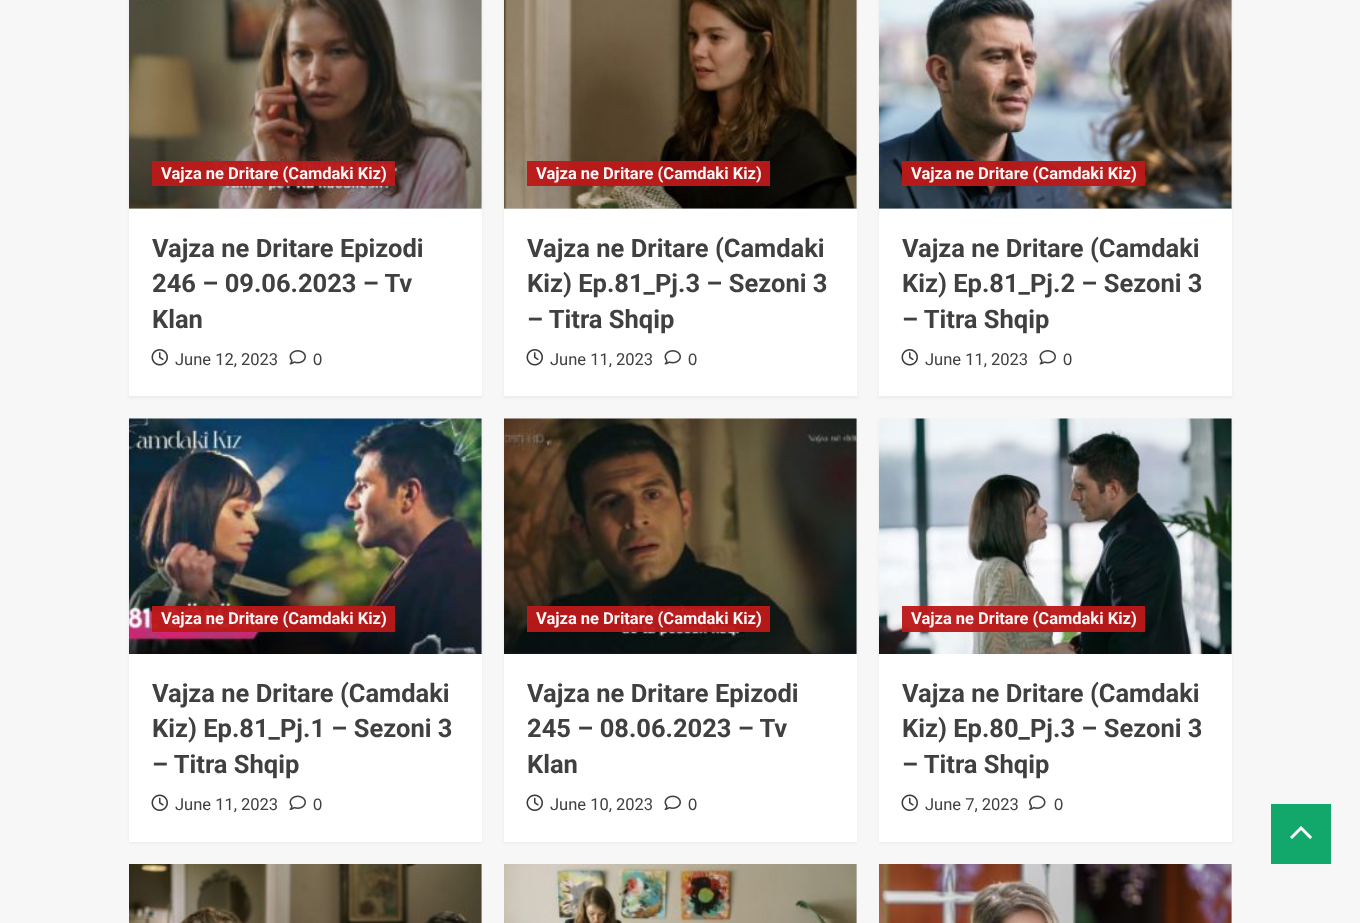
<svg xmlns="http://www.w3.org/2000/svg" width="1360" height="923">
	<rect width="100%" height="100%" fill="#F7F7F7" />
	<rect x="129" y="-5" width="353" height="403" fill="#000000" fill-opacity="0.05" filter="blur(1.5px)" />
	<rect x="129" y="209" width="353" height="187" fill="#FFFFFF" />
	<rect x="129" y="0" width="353" height="209" fill="#D8D8D8" />
	<image x="129" y="0" width="353" height="209" href="assets/img1.png" />
	<rect x="152" y="161" width="243" height="25" fill="#BB1919" fill-opacity="0.96" />
	<text x="161" y="179" font-family="Roboto" font-size="16.5" font-weight="700" fill="#FCF6F6">Vajza ne Dritare (Camdaki Kiz)</text>
	<g font-family="Roboto" font-size="25.5" font-weight="700" fill="#404040">
		<text x="152" y="257">Vajza ne Dritare Epizodi</text>
		<text x="152" y="292">246 – 09.06.2023 – Tv</text>
		<text x="152" y="328">Klan</text>
	</g>
	<image x="151" y="349" width="17" height="17" href="assets/img2.png" />
	<text x="175" y="365" font-family="Roboto" font-size="16.5" fill="#404040">June 12, 2023</text>
	<image x="289" y="350" width="17" height="15" href="assets/img3.png" />
	<text x="313" y="365" font-family="Liberation Sans" font-size="16.5" fill="#404040">0</text>
	<rect x="504" y="-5" width="353" height="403" fill="#000000" fill-opacity="0.05" filter="blur(1.5px)" />
	<rect x="504" y="209" width="353" height="187" fill="#FFFFFF" />
	<rect x="504" y="0" width="353" height="209" fill="#D8D8D8" />
	<image x="504" y="0" width="353" height="209" href="assets/img4.png" />
	<rect x="527" y="161" width="243" height="25" fill="#BB1919" fill-opacity="0.96" />
	<text x="536" y="179" font-family="Roboto" font-size="16.5" font-weight="700" fill="#FCF6F6">Vajza ne Dritare (Camdaki Kiz)</text>
	<g font-family="Roboto" font-size="25.5" font-weight="700" fill="#404040">
		<text x="527" y="257">Vajza ne Dritare (Camdaki</text>
		<text x="527" y="292">Kiz) Ep.81_Pj.3 – Sezoni 3</text>
		<text x="527" y="328">– Titra Shqip</text>
	</g>
	<image x="526" y="349" width="17" height="17" href="assets/img2.png" />
	<text x="550" y="365" font-family="Roboto" font-size="16.5" fill="#404040">June 11, 2023</text>
	<image x="664" y="350" width="17" height="15" href="assets/img3.png" />
	<text x="688" y="365" font-family="Liberation Sans" font-size="16.5" fill="#404040">0</text>
	<rect x="879" y="-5" width="353" height="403" fill="#000000" fill-opacity="0.05" filter="blur(1.5px)" />
	<rect x="879" y="209" width="353" height="187" fill="#FFFFFF" />
	<rect x="879" y="0" width="353" height="209" fill="#D8D8D8" />
	<image x="879" y="0" width="353" height="209" href="assets/img5.png" />
	<rect x="902" y="161" width="243" height="25" fill="#BB1919" fill-opacity="0.96" />
	<text x="911" y="179" font-family="Roboto" font-size="16.5" font-weight="700" fill="#FCF6F6">Vajza ne Dritare (Camdaki Kiz)</text>
	<g font-family="Roboto" font-size="25.5" font-weight="700" fill="#404040">
		<text x="902" y="257">Vajza ne Dritare (Camdaki</text>
		<text x="902" y="292">Kiz) Ep.81_Pj.2 – Sezoni 3</text>
		<text x="902" y="328">– Titra Shqip</text>
	</g>
	<image x="901" y="349" width="17" height="17" href="assets/img2.png" />
	<text x="925" y="365" font-family="Roboto" font-size="16.5" fill="#404040">June 11, 2023</text>
	<image x="1039" y="350" width="17" height="15" href="assets/img3.png" />
	<text x="1063" y="365" font-family="Liberation Sans" font-size="16.5" fill="#404040">0</text>
	<rect x="129" y="420" width="353" height="423" fill="#000000" fill-opacity="0.05" filter="blur(1.5px)" />
	<rect x="129" y="654" width="353" height="188" fill="#FFFFFF" />
	<rect x="481" y="419" width="1" height="235" fill="#D8D8D8" />
	<image x="129" y="418" width="353" height="236" href="assets/img6.png" />
	<rect x="152" y="606" width="243" height="26" fill="#BB1919" fill-opacity="0.96" />
	<text x="161" y="624" font-family="Roboto" font-size="16.5" font-weight="700" fill="#FCF6F6">Vajza ne Dritare (Camdaki Kiz)</text>
	<g font-family="Roboto" font-size="25.5" font-weight="700" fill="#404040">
		<text x="152" y="702">Vajza ne Dritare (Camdaki</text>
		<text x="152" y="737">Kiz) Ep.81_Pj.1 – Sezoni 3</text>
		<text x="152" y="773">– Titra Shqip</text>
	</g>
	<image x="151" y="794" width="17" height="17" href="assets/img7.png" />
	<text x="175" y="810" font-family="Roboto" font-size="16.5" fill="#404040">June 11, 2023</text>
	<image x="289" y="795" width="17" height="15" href="assets/img8.png" />
	<text x="313" y="810" font-family="Liberation Sans" font-size="16.5" fill="#404040">0</text>
	<rect x="504" y="420" width="353" height="423" fill="#000000" fill-opacity="0.05" filter="blur(1.5px)" />
	<rect x="504" y="654" width="353" height="188" fill="#FFFFFF" />
	<rect x="856" y="419" width="1" height="235" fill="#D8D8D8" />
	<image x="504" y="418" width="353" height="236" href="assets/img9.png" />
	<rect x="527" y="606" width="243" height="26" fill="#BB1919" fill-opacity="0.96" />
	<text x="536" y="624" font-family="Roboto" font-size="16.5" font-weight="700" fill="#FCF6F6">Vajza ne Dritare (Camdaki Kiz)</text>
	<g font-family="Roboto" font-size="25.5" font-weight="700" fill="#404040">
		<text x="527" y="702">Vajza ne Dritare Epizodi</text>
		<text x="527" y="737">245 – 08.06.2023 – Tv</text>
		<text x="527" y="773">Klan</text>
	</g>
	<image x="526" y="794" width="17" height="17" href="assets/img7.png" />
	<text x="550" y="810" font-family="Roboto" font-size="16.5" fill="#404040">June 10, 2023</text>
	<image x="664" y="795" width="17" height="15" href="assets/img8.png" />
	<text x="688" y="810" font-family="Liberation Sans" font-size="16.5" fill="#404040">0</text>
	<rect x="879" y="420" width="353" height="423" fill="#000000" fill-opacity="0.05" filter="blur(1.5px)" />
	<rect x="879" y="654" width="353" height="188" fill="#FFFFFF" />
	<rect x="1231" y="419" width="1" height="235" fill="#D8D8D8" />
	<image x="879" y="418" width="353" height="236" href="assets/img10.png" />
	<rect x="902" y="606" width="243" height="26" fill="#BB1919" fill-opacity="0.96" />
	<text x="911" y="624" font-family="Roboto" font-size="16.5" font-weight="700" fill="#FCF6F6">Vajza ne Dritare (Camdaki Kiz)</text>
	<g font-family="Roboto" font-size="25.5" font-weight="700" fill="#404040">
		<text x="902" y="702">Vajza ne Dritare (Camdaki</text>
		<text x="902" y="737">Kiz) Ep.80_Pj.3 – Sezoni 3</text>
		<text x="902" y="773">– Titra Shqip</text>
	</g>
	<image x="901" y="794" width="17" height="17" href="assets/img7.png" />
	<text x="925" y="810" font-family="Roboto" font-size="16.5" fill="#404040">June 7, 2023</text>
	<image x="1029" y="795" width="17" height="15" href="assets/img11.png" />
	<text x="1054" y="810" font-family="Liberation Sans" font-size="16.5" fill="#404040">0</text>
	<rect x="481" y="864" width="1" height="59" fill="#D8D8D8" />
	<image x="129" y="864" width="353" height="59" href="assets/img12.png" />
	<rect x="856" y="864" width="1" height="59" fill="#D8D8D8" />
	<image x="504" y="864" width="353" height="59" href="assets/img13.png" />
	<rect x="1231" y="864" width="1" height="59" fill="#D8D8D8" />
	<image x="879" y="864" width="353" height="59" href="assets/img14.png" />
	<rect x="1271" y="804" width="60" height="60" fill="#12A86B" />
	<image x="1290" y="826" width="22" height="13" href="assets/img15.png" />
</svg>
